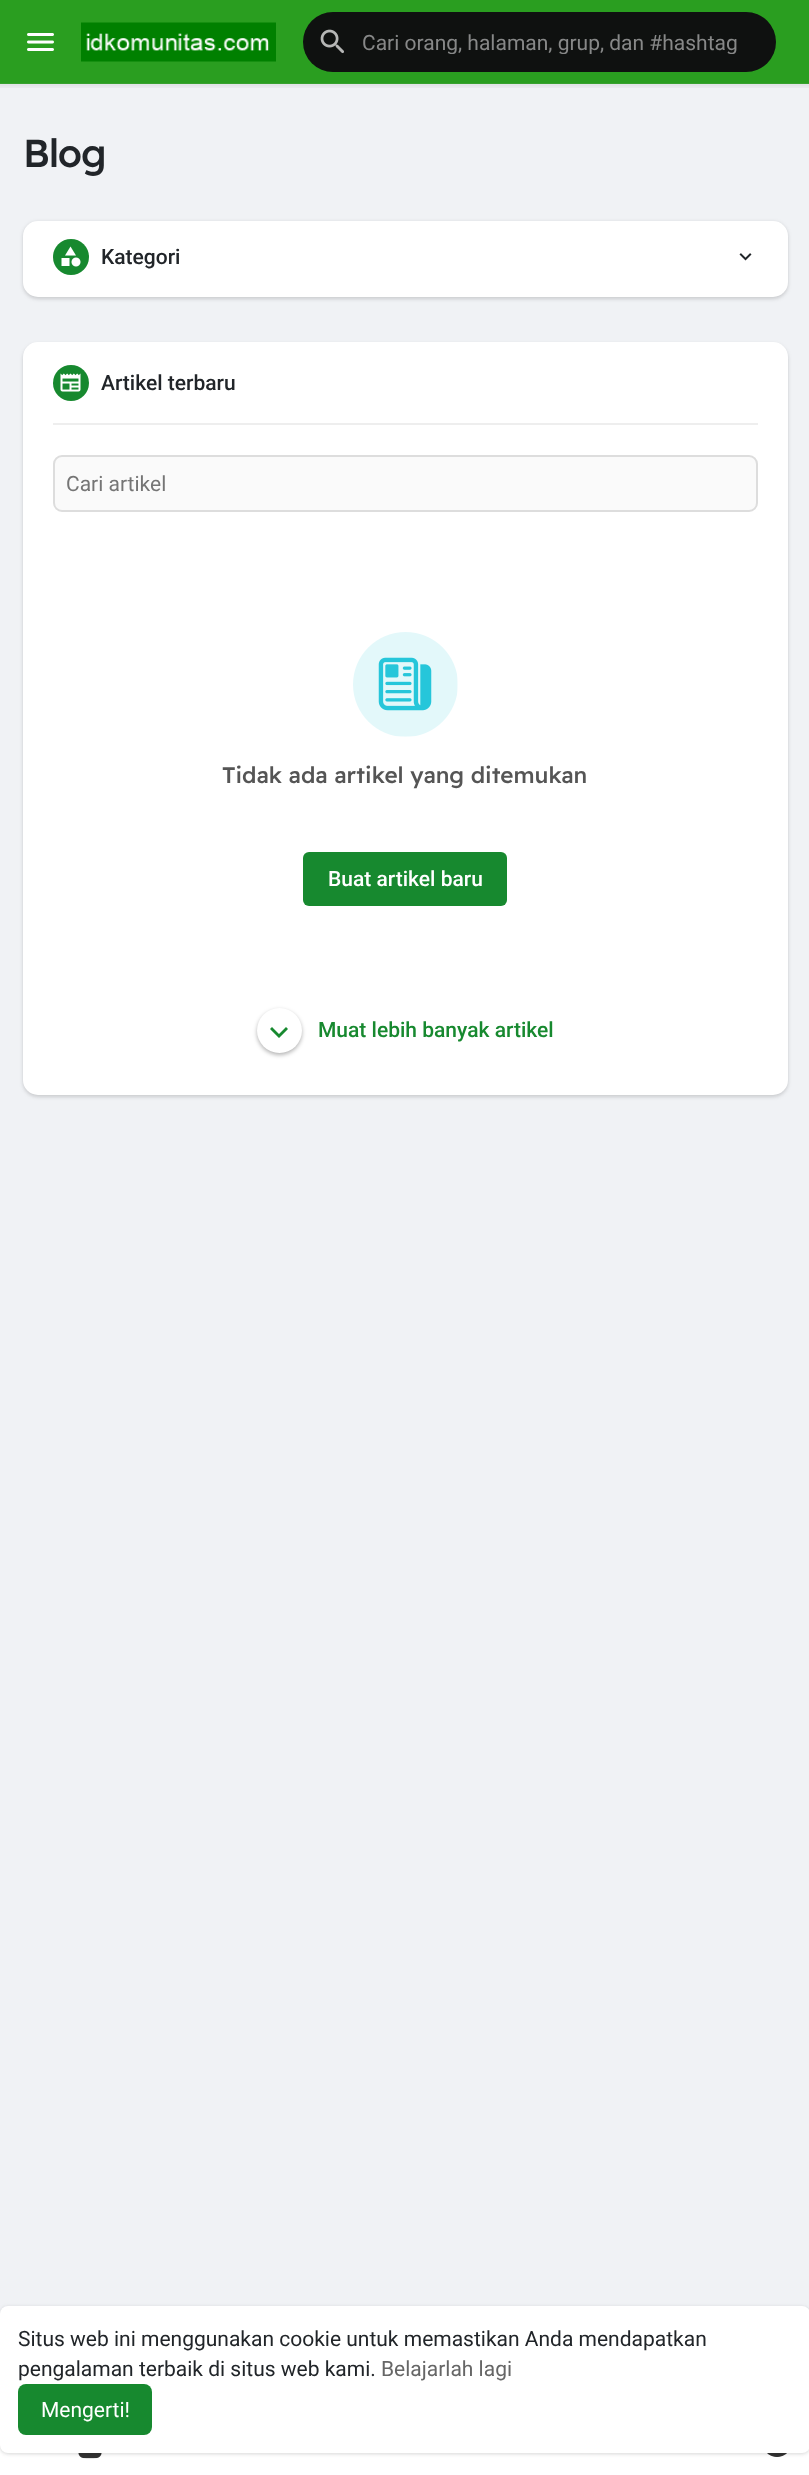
<svg xmlns="http://www.w3.org/2000/svg" width="809" height="2475">
	<defs>
		<clipPath id="clip1"><rect x="362" y="30" width="378" height="24" /></clipPath>
	</defs>
	<rect width="100%" height="100%" fill="#F0F2F5" />
	<rect x="0" y="0" width="809" height="84" fill="#2A9E20" />
	<image x="27" y="33" width="27" height="18" href="assets/img1.png" />
	<image x="81" y="22" width="195" height="40" href="assets/img2.png" />
	<rect x="303" y="12" width="473" height="60" rx="30" fill="#0F1110" />
	<image x="320" y="29" width="24" height="25" href="assets/img3.png" />
	<g clip-path="url(#clip1)">
		<text x="362" y="50" font-family="Roboto" font-size="21" fill="#878888">Cari orang, halaman, grup, dan #hashtag</text>
	</g>
	<image x="0" y="83" width="809" height="5" href="assets/img4.png" />
	<rect x="0" y="2445" width="809" height="30" fill="#FFFFFF" />
	<image x="767" y="2453" width="20" height="4" href="assets/img5.png" />
	<text x="23" y="167" font-family="Readex Pro" font-size="39" font-weight="500" letter-spacing="-1" fill="#212529">Blog</text>
	<rect x="23" y="222" width="765" height="77" rx="15" fill="#000000" fill-opacity="0.06" filter="blur(1.5px)" />
	<rect x="23" y="222" width="765" height="77" rx="15" fill="#000000" fill-opacity="0.1" filter="blur(2px)" />
	<rect x="23" y="221" width="765" height="76" rx="15" fill="#FFFFFF" />
	<circle cx="71" cy="257" r="18" fill="#17892F" />
	<image x="61" y="246" width="20" height="21" href="assets/img6.png" />
	<text x="101" y="264" font-family="Roboto" font-size="21" font-weight="500" fill="#212529">Kategori</text>
	<image x="739" y="253" width="13" height="8" href="assets/img7.png" />
	<rect x="23" y="344" width="765" height="753" rx="15" fill="#000000" fill-opacity="0.06" filter="blur(1.5px)" />
	<rect x="23" y="344" width="765" height="753" rx="15" fill="#000000" fill-opacity="0.1" filter="blur(2px)" />
	<rect x="23" y="342" width="765" height="753" rx="15" fill="#FFFFFF" />
	<rect x="53" y="423" width="705" height="2" fill="#EEEEEE" />
	<circle cx="71" cy="383" r="18" fill="#17892F" />
	<image x="60" y="373" width="21" height="19" href="assets/img8.png" />
	<text x="101" y="390" font-family="Roboto" font-size="21" font-weight="500" fill="#212529">Artikel terbaru</text>
	<rect x="54" y="456" width="703" height="55" rx="8" fill="#FAFAFA" stroke="#DDDDDD" stroke-width="2" />
	<text x="66" y="491" font-family="Roboto" font-size="21" fill="#757575">Cari artikel</text>
	<image x="353" y="632" width="105" height="105" href="assets/img9.png" />
	<text x="222" y="783" font-family="Readex Pro" font-size="22.5" font-weight="500" fill="#555555">Tidak ada artikel yang ditemukan</text>
	<rect x="303" y="852" width="204" height="54" rx="6" fill="#17892F" />
	<text x="328" y="886" font-family="Roboto" font-size="21" font-weight="500" fill="#FFFFFF">Buat artikel baru</text>
	<rect x="257" y="1010" width="45" height="45" rx="22.5" fill="#000000" fill-opacity="0.3" filter="blur(2px)" />
	<circle cx="279.5" cy="1030.5" r="22.5" fill="#FFFFFF" />
	<path d="M272 1027L279 1034L286 1027L288 1029L279 1038L270 1029Z" fill="#17892F" />
	<text x="318" y="1037" font-family="Roboto" font-size="21" font-weight="500" fill="#17892F">Muat lebih banyak artikel</text>
	<image x="78" y="2453" width="24" height="6" href="assets/img10.png" />
	<rect x="0" y="2307" width="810" height="147" rx="8" fill="#000000" fill-opacity="0.06" filter="blur(1.5px)" />
	<rect x="0" y="2307" width="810" height="147" rx="8" fill="#000000" fill-opacity="0.1" filter="blur(2px)" />
	<rect x="0" y="2306" width="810" height="147" rx="8" fill="#FFFFFF" />
	<g font-family="Roboto" font-size="21" fill="#212529">
		<text x="18" y="2346">Situs web ini menggunakan cookie untuk memastikan Anda mendapatkan</text>
		<text x="18" y="2376">pengalaman terbaik di situs web kami.</text>
	</g>
	<text x="381" y="2376" font-family="Roboto" font-size="21" fill="#666666">Belajarlah lagi</text>
	<rect x="18" y="2384" width="134" height="51" rx="8" fill="#17892F" />
	<text x="41" y="2417" font-family="Roboto" font-size="21" fill="#FFFFFF">Mengerti!</text>
</svg>
